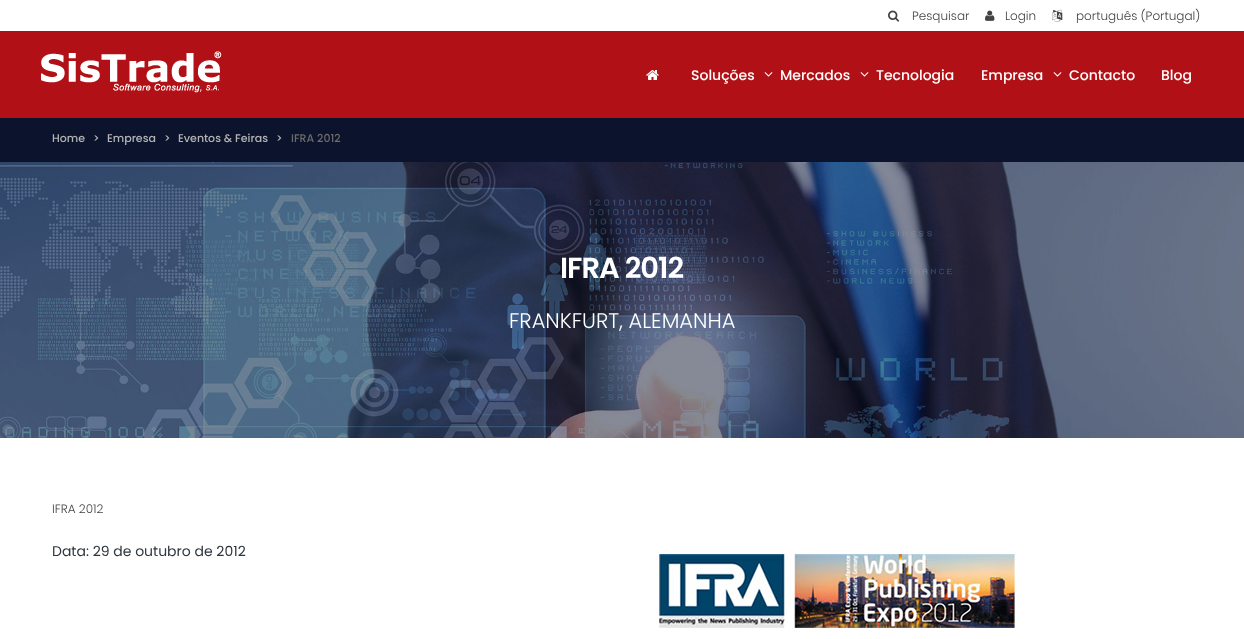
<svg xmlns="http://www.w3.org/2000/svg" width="1244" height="639">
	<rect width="100%" height="100%" fill="#FFFFFF" />
	<image x="888" y="10" width="12" height="12" href="assets/img1.png" />
	<text x="912" y="20" font-family="Poppins" font-size="12" font-weight="300" fill="#434343">Pesquisar</text>
	<image x="985" y="10" width="10" height="11" href="assets/img2.png" />
	<text x="1005" y="20" font-family="Poppins" font-size="12" font-weight="300" fill="#434343">Login</text>
	<image x="1052" y="9" width="11" height="13" href="assets/img3.png" />
	<text x="1076" y="20" font-family="Poppins" font-size="12" font-weight="300" fill="#434343">português (Portugal)</text>
	<rect x="0" y="31" width="1244" height="87" fill="#B11116" />
	<image x="41" y="51" width="181" height="42" href="assets/img4.png" />
	<image x="646" y="70" width="13" height="10" href="assets/img5.png" />
	<text x="691" y="80" font-family="Poppins" font-size="14" font-weight="500" fill="#FFFFFF">Soluções</text>
	<image x="764" y="72" width="9" height="5" href="assets/img6.png" />
	<text x="780" y="80" font-family="Poppins" font-size="14" font-weight="500" fill="#FFFFFF">Mercados</text>
	<image x="860" y="72" width="9" height="5" href="assets/img6.png" />
	<g font-family="Poppins" font-size="14" font-weight="500" fill="#FFFFFF">
		<text x="876" y="80">Tecnologia</text>
		<text x="981" y="80">Empresa</text>
	</g>
	<image x="1053" y="72" width="9" height="5" href="assets/img6.png" />
	<g font-family="Poppins" font-size="14" font-weight="500" fill="#FFFFFF">
		<text x="1069" y="80">Contacto</text>
		<text x="1161" y="80">Blog</text>
	</g>
	<rect x="0" y="118" width="1244" height="44" fill="#0C132D" />
	<g font-family="Poppins" font-size="11" font-weight="500" fill="#B5B5B5">
		<text x="52" y="142">Home</text>
		<text x="93" y="142">&gt;</text>
		<text x="107" y="142">Empresa</text>
		<text x="164" y="142">&gt;</text>
		<text x="178" y="142">Eventos &amp; Feiras</text>
		<text x="276" y="142">&gt;</text>
	</g>
	<text x="291" y="142" font-family="Poppins" font-size="11" font-weight="500" fill="#6B6B6B">IFRA 2012</text>
	<image x="0" y="162" width="1244" height="276" href="assets/img7.png" />
	<text x="560" y="278" font-family="Poppins" font-size="29" font-weight="600" letter-spacing="-1" fill="#FFFFFF">IFRA 2012</text>
	<text x="509" y="328" font-family="Poppins" font-size="21" font-weight="300" fill="#FFFFFF">FRANKFURT, ALEMANHA</text>
	<text x="52" y="513" font-family="Poppins" font-size="12" font-weight="300" fill="#434343">IFRA 2012</text>
	<text x="52" y="556" font-family="Poppins" font-size="14" fill="#2E363F">Data: 29 de outubro de 2012</text>
	<image x="659" y="554" width="356" height="74" href="assets/img8.png" />
</svg>
